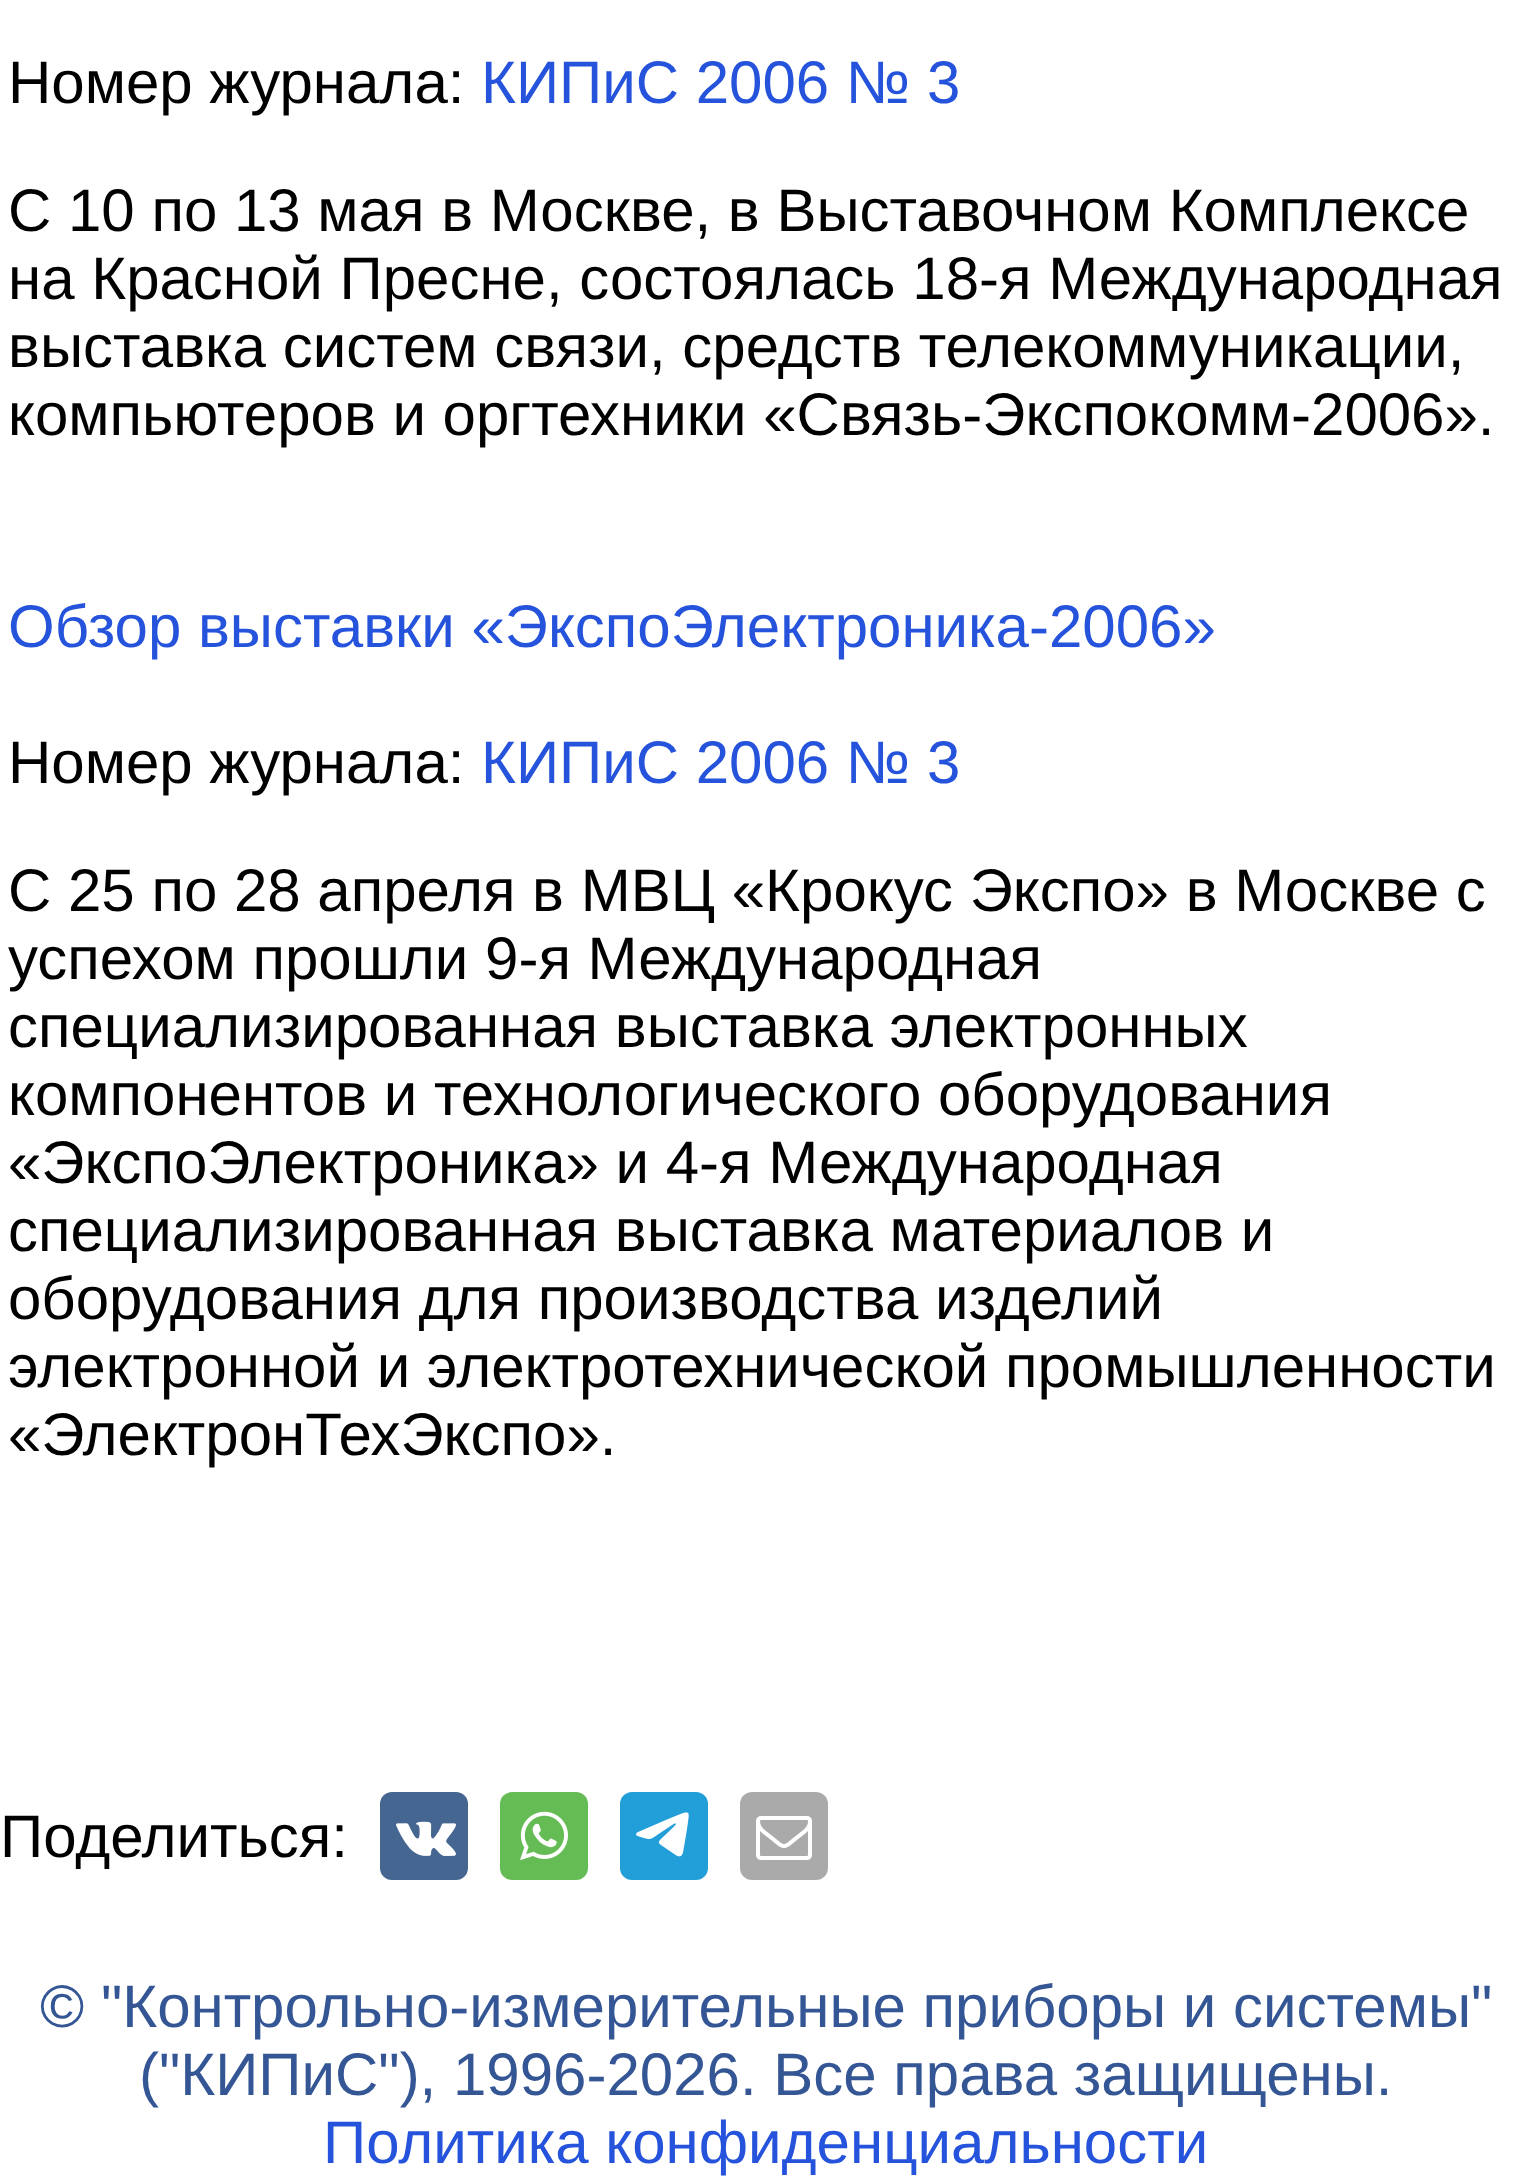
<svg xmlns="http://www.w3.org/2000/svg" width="1531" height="2176">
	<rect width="100%" height="100%" fill="#FFFFFF" />
	<text x="8" y="103" font-family="Liberation Sans" font-size="60" fill="#000000">Номер журнала:</text>
	<text x="481" y="103" font-family="Liberation Sans" font-size="60" fill="#2553DB">КИПиС 2006 № 3</text>
	<g font-family="Liberation Sans" font-size="60" fill="#000000">
		<text x="8" y="231">С 10 по 13 мая в Москве, в Выставочном Комплексе</text>
		<text x="8" y="299">на Красной Пресне, состоялась 18-я Международная</text>
		<text x="8" y="367">выставка систем связи, средств телекоммуникации,</text>
		<text x="8" y="435">компьютеров и оргтехники «Связь-Экспокомм-2006».</text>
	</g>
	<text x="8" y="647" font-family="Liberation Sans" font-size="60" fill="#2553DB">Обзор выставки «ЭкспоЭлектроника-2006»</text>
	<text x="8" y="783" font-family="Liberation Sans" font-size="60" fill="#000000">Номер журнала:</text>
	<text x="481" y="783" font-family="Liberation Sans" font-size="60" fill="#2553DB">КИПиС 2006 № 3</text>
	<g font-family="Liberation Sans" font-size="60" fill="#000000">
		<text x="8" y="911">С 25 по 28 апреля в МВЦ «Крокус Экспо» в Москве с</text>
		<text x="8" y="979">успехом прошли 9-я Международная</text>
		<text x="8" y="1047">специализированная выставка электронных</text>
		<text x="8" y="1115">компонентов и технологического оборудования</text>
		<text x="8" y="1183">«ЭкспоЭлектроника» и 4-я Международная</text>
		<text x="8" y="1251">специализированная выставка материалов и</text>
		<text x="8" y="1319">оборудования для производства изделий</text>
		<text x="8" y="1387">электронной и электротехнической промышленности</text>
		<text x="8" y="1455">«ЭлектронТехЭкспо».</text>
		<text x="0" y="1857">Поделиться:</text>
	</g>
	<rect x="380" y="1792" width="88" height="88" rx="12" fill="#446690" />
	<image x="396" y="1821" width="60" height="35" href="assets/img1.png" />
	<rect x="500" y="1792" width="88" height="88" rx="12" fill="#65BC54" />
	<image x="520" y="1811" width="48" height="50" href="assets/img2.png" />
	<rect x="620" y="1792" width="88" height="88" rx="12" fill="#229ED9" />
	<image x="636" y="1812" width="53" height="45" href="assets/img3.png" />
	<rect x="740" y="1792" width="88" height="88" rx="12" fill="#AAAAAA" />
	<image x="756" y="1816" width="56" height="44" href="assets/img4.png" />
	<g font-family="Liberation Sans" font-size="60" fill="#345695">
		<text x="40" y="2027">© "Контрольно-измерительные приборы и системы"</text>
		<text x="139" y="2095">("КИПиС"), 1996-2026. Все права защищены.</text>
	</g>
	<text x="323" y="2163" font-family="Liberation Sans" font-size="60" fill="#2553DB">Политика конфиденциальности</text>
</svg>
